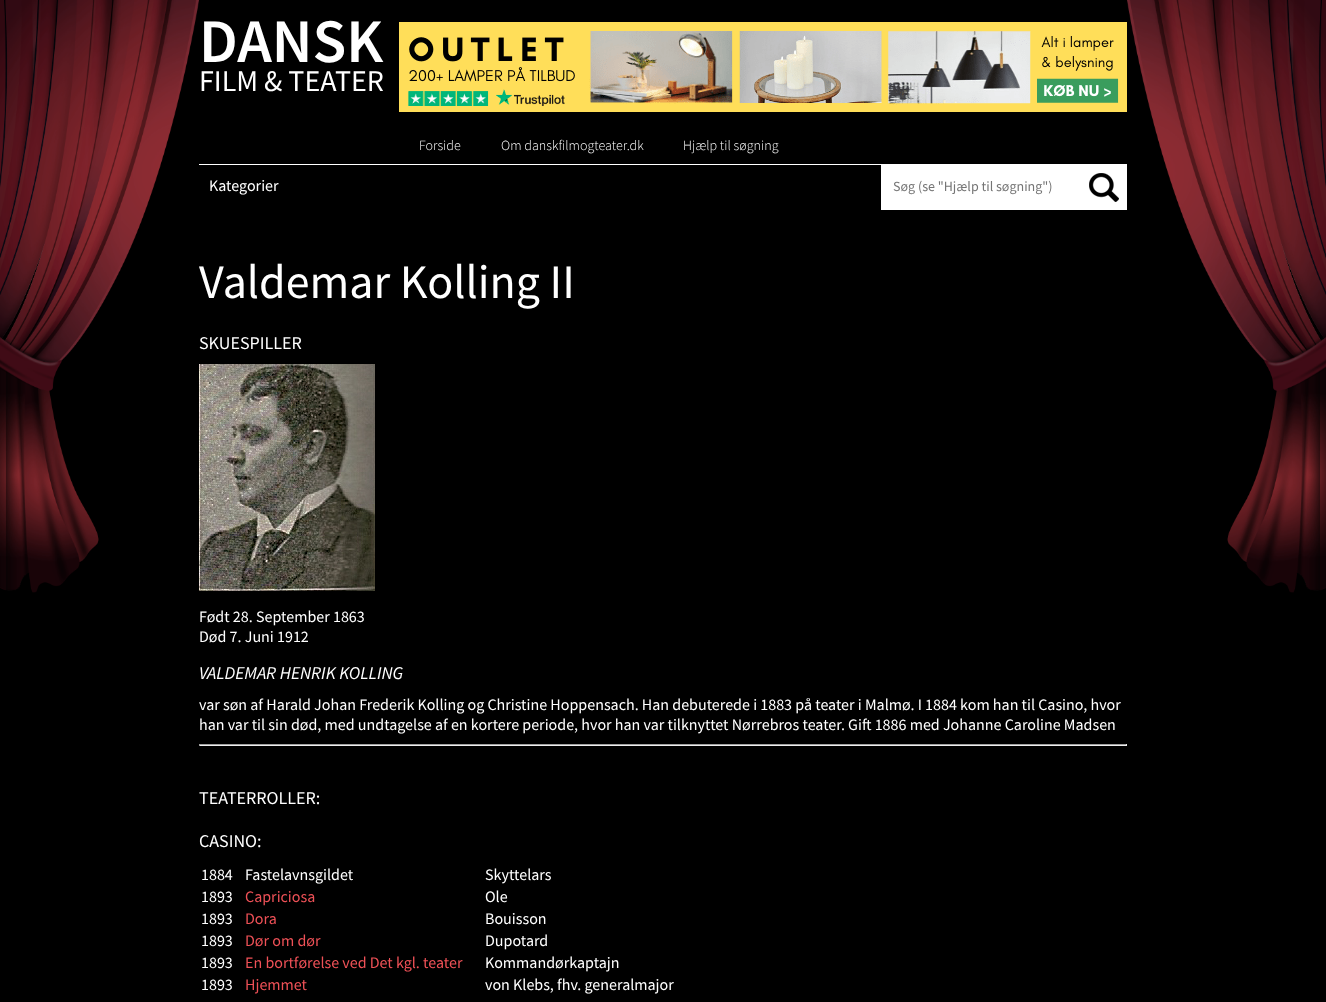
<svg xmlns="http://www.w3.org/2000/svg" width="1326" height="1002">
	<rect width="100%" height="100%" fill="#000000" />
	<text x="199" y="298" font-family="Source Sans Pro" font-size="48" fill="#FFFFFF">Valdemar Kolling II</text>
	<image x="0" y="0" width="199" height="593" href="assets/img1.png" />
	<rect x="199" y="164" width="928" height="1" fill="#FFFFFF" />
	<text x="199" y="62" font-family="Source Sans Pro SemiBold" font-size="62" font-weight="600" fill="#FFFFFF">DANSK</text>
	<text x="199" y="91" font-family="Source Sans Pro" font-size="30" fill="#FFFFFF">FILM &amp; TEATER</text>
	<image x="399" y="22" width="728" height="90" href="assets/img2.png" />
	<g font-family="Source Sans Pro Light" font-size="14" font-weight="300" fill="#FFFFFF">
		<text x="419" y="150">Forside</text>
		<text x="501" y="150">Om danskfilmogteater.dk</text>
		<text x="683" y="150">Hjælp til søgning</text>
	</g>
	<text x="209" y="191" font-family="Source Sans Pro" font-size="16" fill="#FFFFFF">Kategorier</text>
	<rect x="881" y="165" width="246" height="45" fill="#FFFFFF" />
	<text x="893" y="191" font-family="Source Sans Pro" font-size="14" fill="#757575">Søg (se "Hjælp til søgning")</text>
	<image x="1089" y="173" width="30" height="29" href="assets/img3.png" />
	<image x="1127" y="0" width="199" height="593" href="assets/img4.png" />
	<text x="199" y="349" font-family="Source Sans Pro" font-size="18" fill="#FFFFFF">SKUESPILLER</text>
	<image x="199" y="364" width="176" height="227" href="assets/img5.png" />
	<g font-family="Source Sans Pro" font-size="16" fill="#FFFFFF">
		<text x="199" y="622">Født 28. September 1863</text>
		<text x="199" y="642">Død 7. Juni 1912</text>
	</g>
	<text x="199" y="679" font-family="Source Sans Pro" font-size="18" font-style="italic" fill="#FFFFFF">VALDEMAR HENRIK KOLLING</text>
	<g font-family="Source Sans Pro" font-size="16" fill="#FFFFFF">
		<text x="199" y="710">var søn af Harald Johan Frederik Kolling og Christine Hoppensach. Han debuterede i 1883 på teater i Malmø. I 1884 kom han til Casino, hvor</text>
		<text x="199" y="730">han var til sin død, med undtagelse af en kortere periode, hvor han var tilknyttet Nørrebros teater. Gift 1886 med Johanne Caroline Madsen</text>
	</g>
	<rect x="199" y="744" width="928" height="1" fill="#9F9F9F" />
	<rect x="1126" y="744" width="1" height="2" fill="#EEEEEE" />
	<rect x="199" y="745" width="928" height="1" fill="#EEEEEE" />
	<rect x="199" y="744" width="1" height="2" fill="#9F9F9F" />
	<g font-family="Source Sans Pro" font-size="18" fill="#FFFFFF">
		<text x="199" y="804">TEATERROLLER:</text>
		<text x="199" y="847">CASINO:</text>
	</g>
	<g font-family="Source Sans Pro" font-size="16" fill="#FFFFFF">
		<text x="201" y="880">1884</text>
		<text x="245" y="880">Fastelavnsgildet</text>
		<text x="485" y="880">Skyttelars</text>
		<text x="201" y="902">1893</text>
	</g>
	<text x="245" y="902" font-family="Source Sans Pro" font-size="16" fill="#EF5157">Capriciosa</text>
	<g font-family="Source Sans Pro" font-size="16" fill="#FFFFFF">
		<text x="485" y="902">Ole</text>
		<text x="201" y="924">1893</text>
	</g>
	<text x="245" y="924" font-family="Source Sans Pro" font-size="16" fill="#EF5157">Dora</text>
	<g font-family="Source Sans Pro" font-size="16" fill="#FFFFFF">
		<text x="485" y="924">Bouisson</text>
		<text x="201" y="946">1893</text>
	</g>
	<text x="245" y="946" font-family="Source Sans Pro" font-size="16" fill="#EF5157">Dør om dør</text>
	<g font-family="Source Sans Pro" font-size="16" fill="#FFFFFF">
		<text x="485" y="946">Dupotard</text>
		<text x="201" y="968">1893</text>
	</g>
	<text x="245" y="968" font-family="Source Sans Pro" font-size="16" fill="#EF5157">En bortførelse ved Det kgl. teater</text>
	<g font-family="Source Sans Pro" font-size="16" fill="#FFFFFF">
		<text x="485" y="968">Kommandørkaptajn</text>
		<text x="201" y="990">1893</text>
	</g>
	<text x="245" y="990" font-family="Source Sans Pro" font-size="16" fill="#EF5157">Hjemmet</text>
	<text x="485" y="990" font-family="Source Sans Pro" font-size="16" fill="#FFFFFF">von Klebs, fhv. generalmajor</text>
</svg>
